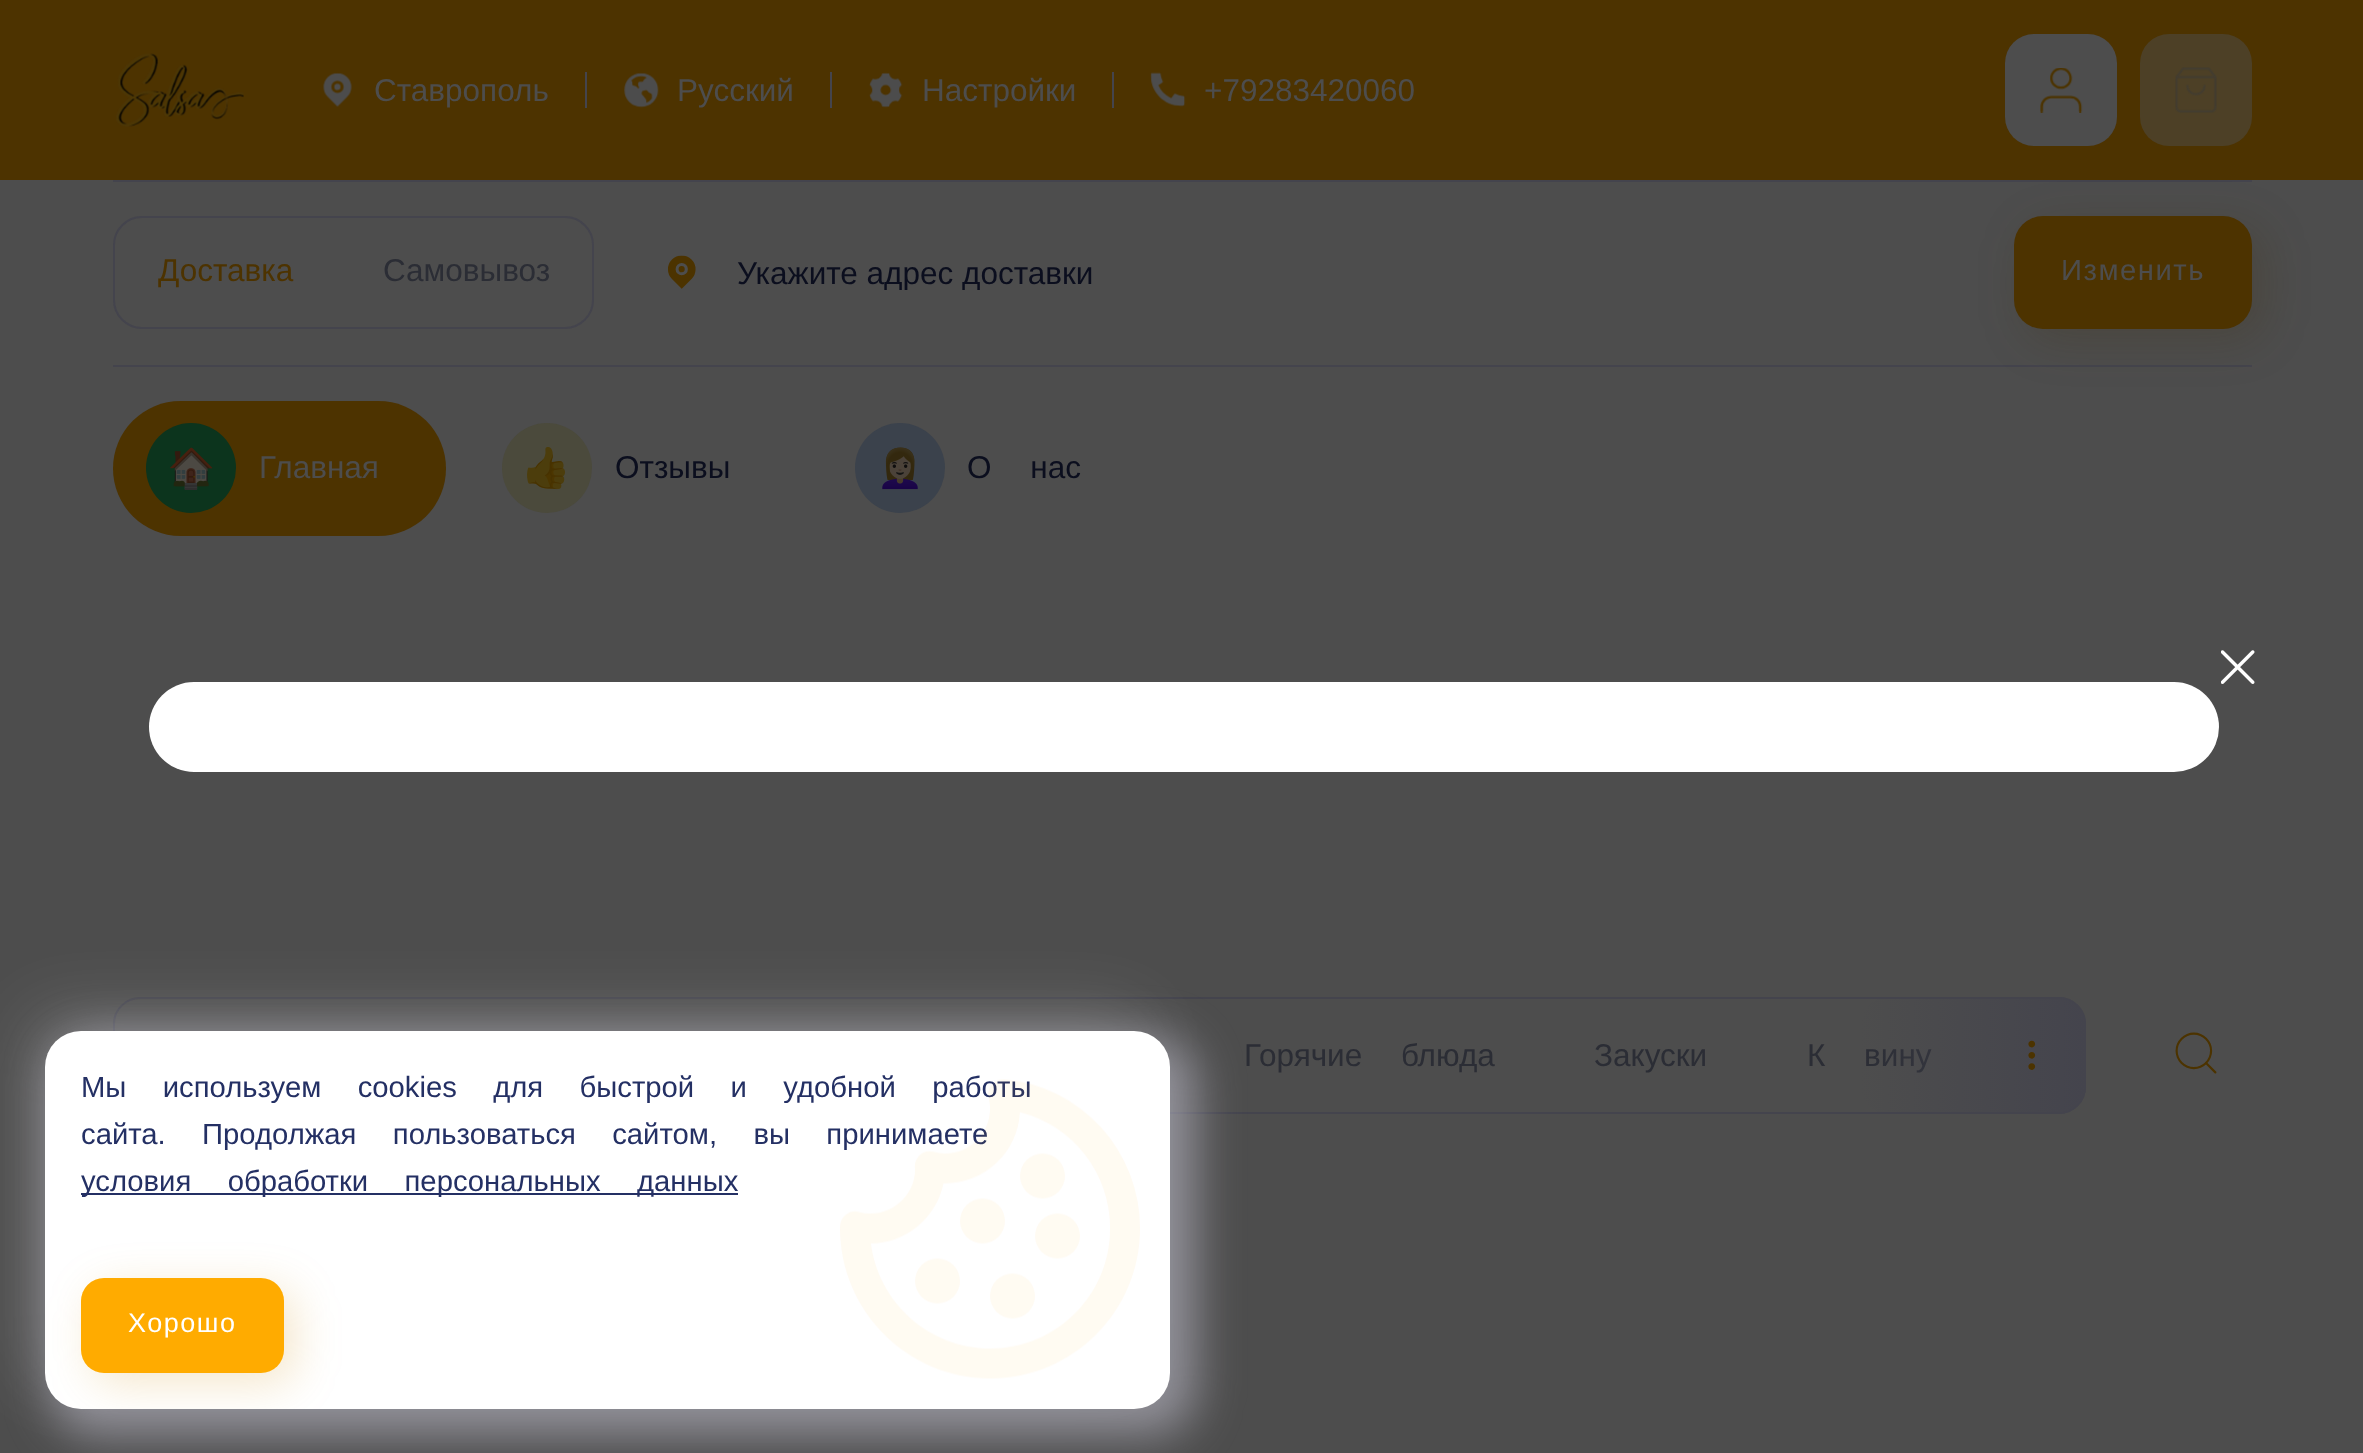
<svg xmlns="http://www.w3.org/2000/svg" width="2363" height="1453">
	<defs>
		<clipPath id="clip1"><rect x="736" y="254" width="1276" height="36" /></clipPath>
		<linearGradient id="g1" gradientUnits="userSpaceOnUse" x1="1861" y1="1055" x2="2086" y2="1055"><stop offset="0" stop-color="#44444D" stop-opacity="0" /><stop offset="1" stop-color="#44444D" /></linearGradient>
		<clipPath id="clip2"><rect x="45" y="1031" width="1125" height="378" rx="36" /></clipPath>
	</defs>
	<rect width="100%" height="100%" fill="#4D4D4D" />
	<rect x="0" y="0" width="2363" height="180" fill="#4D3300" />
	<image x="116" y="53" width="128" height="74" href="assets/img1.png" />
	<rect x="585" y="72" width="2" height="36" fill="#44444D" />
	<image x="323" y="72" width="29" height="35" href="assets/img2.png" />
	<text x="374" y="101" font-family="Liberation Sans" font-size="31.5" fill="#4D4D4D">Ставрополь</text>
	<rect x="830" y="72" width="2" height="36" fill="#44444D" />
	<image x="624" y="72" width="35" height="36" href="assets/img3.png" />
	<text x="677" y="101" font-family="Liberation Sans" font-size="31.5" fill="#4D4D4D">Русский</text>
	<rect x="1112" y="72" width="2" height="36" fill="#44444D" />
	<image x="869" y="72" width="34" height="36" href="assets/img4.png" />
	<text x="922" y="101" font-family="Liberation Sans" font-size="31.5" fill="#4D4D4D">Настройки</text>
	<image x="1150" y="72" width="36" height="35" href="assets/img5.png" />
	<text x="1204" y="101" font-family="Liberation Sans" font-size="31.5" fill="#4D4D4D">+79283420060</text>
	<rect x="2005" y="34" width="112" height="112" rx="29" fill="#4D4D4D" />
	<image x="2040" y="68" width="43" height="45" href="assets/img6.png" />
	<rect x="2140" y="34" width="112" height="112" rx="29" fill="#4D4026" />
	<image x="2175" y="67" width="42" height="46" href="assets/img7.png" />
	<rect x="113" y="180" width="2139" height="2" fill="#44444D" />
	<rect x="113" y="365" width="2139" height="2" fill="#44444D" />
	<rect x="114" y="217" width="479" height="111" rx="28" fill="none" stroke="#44444D" stroke-width="2" />
	<text x="158" y="281" font-family="Liberation Sans" font-size="31.5" fill="#4D3300">Доставка</text>
	<text x="383" y="281" font-family="Liberation Sans" font-size="31.5" fill="#2B2D35">Самовывоз</text>
	<image x="668" y="255" width="28" height="34" href="assets/img8.png" />
	<g clip-path="url(#clip1)">
		<text x="737" y="284" font-family="Liberation Sans" font-size="31.5" fill="#0B0E1E">Укажите адрес доставки</text>
	</g>
	<rect x="2025" y="227" width="239" height="113" rx="29" fill="#3D2900" fill-opacity="0.2" filter="blur(22.5px)" />
	<rect x="2014" y="216" width="238" height="113" rx="29" fill="#4D3300" />
	<text x="2061" y="280" font-family="Liberation Sans" font-size="29.25" letter-spacing="1.5" fill="#4D4D4D">Изменить</text>
	<rect x="113" y="401" width="333" height="135" rx="67.5" fill="#4D3300" />
	<circle cx="191" cy="468" r="45" fill="#0C341D" />
	<image x="170" y="447" width="43" height="43" href="assets/img9.png" />
	<text x="259" y="478" font-family="Liberation Sans" font-size="31.5" fill="#4D4D4D">Главная</text>
	<circle cx="547" cy="468" r="45" fill="#4B4A3C" />
	<image x="527" y="447" width="38" height="43" href="assets/img10.png" />
	<text x="615" y="478" font-family="Liberation Sans" font-size="31.5" fill="#0B0E1E">Отзывы</text>
	<circle cx="900" cy="468" r="45" fill="#3B424C" />
	<image x="882" y="447" width="36" height="43" href="assets/img11.png" />
	<text x="967" y="478" word-spacing="30" font-family="Liberation Sans" font-size="31.5" fill="#0B0E1E">О нас</text>
	<rect x="114" y="998" width="1971" height="115" rx="26" fill="none" stroke="#44444D" stroke-width="2" />
	<g font-family="Liberation Sans" font-size="31.5" fill="#2B2D35">
		<text x="1244" y="1066" word-spacing="30">Горячие блюда</text>
		<text x="1594" y="1066">Закуски</text>
		<text x="1807" y="1066" word-spacing="30">К вину</text>
	</g>
	<rect x="1861" y="997" width="225" height="117" rx="27" fill="url(#g1)" />
	<image x="2028" y="1040" width="8" height="30" href="assets/img12.png" />
	<image x="2175" y="1032" width="42" height="42" href="assets/img13.png" />
	<rect x="23" y="1008" width="1125" height="378" rx="36" fill="#FFFFFF" fill-opacity="0.15" filter="blur(34px)" />
	<rect x="50" y="1035" width="1147" height="401" rx="47" fill="#D0CDDD" fill-opacity="0.5" filter="blur(22.5px)" />
	<rect x="45" y="1031" width="1125" height="378" rx="36" fill="#FFFFFF" />
	<g font-family="Liberation Sans" font-size="29.25" fill="#243064">
		<text x="81" y="1097" word-spacing="28.25">Мы используем cookies для быстрой и удобной работы</text>
		<text x="81" y="1144" word-spacing="28.25">сайта. Продолжая пользоваться сайтом, вы принимаете</text>
	</g>
	<rect x="81" y="1193" width="657" height="2" fill="#243064" />
	<text x="81" y="1191" word-spacing="28.25" font-family="Liberation Sans" font-size="29.25" fill="#243064">условия обработки персональных данных</text>
	<g clip-path="url(#clip2)">
		<rect x="92" y="1289" width="203" height="95" rx="23" fill="#CC8900" fill-opacity="0.2" filter="blur(22.5px)" />
	</g>
	<rect x="81" y="1278" width="203" height="95" rx="23" fill="#FFAB00" />
	<text x="128" y="1332" font-family="Liberation Sans" font-size="27" letter-spacing="1.5" fill="#FFFFFF">Хорошо</text>
	<image x="840" y="1079" width="300" height="300" href="assets/img14.png" />
	<rect x="149" y="682" width="2070" height="90" rx="45" fill="#FFFFFF" />
	<image x="2221" y="650" width="34" height="34" href="assets/img15.png" />
</svg>
